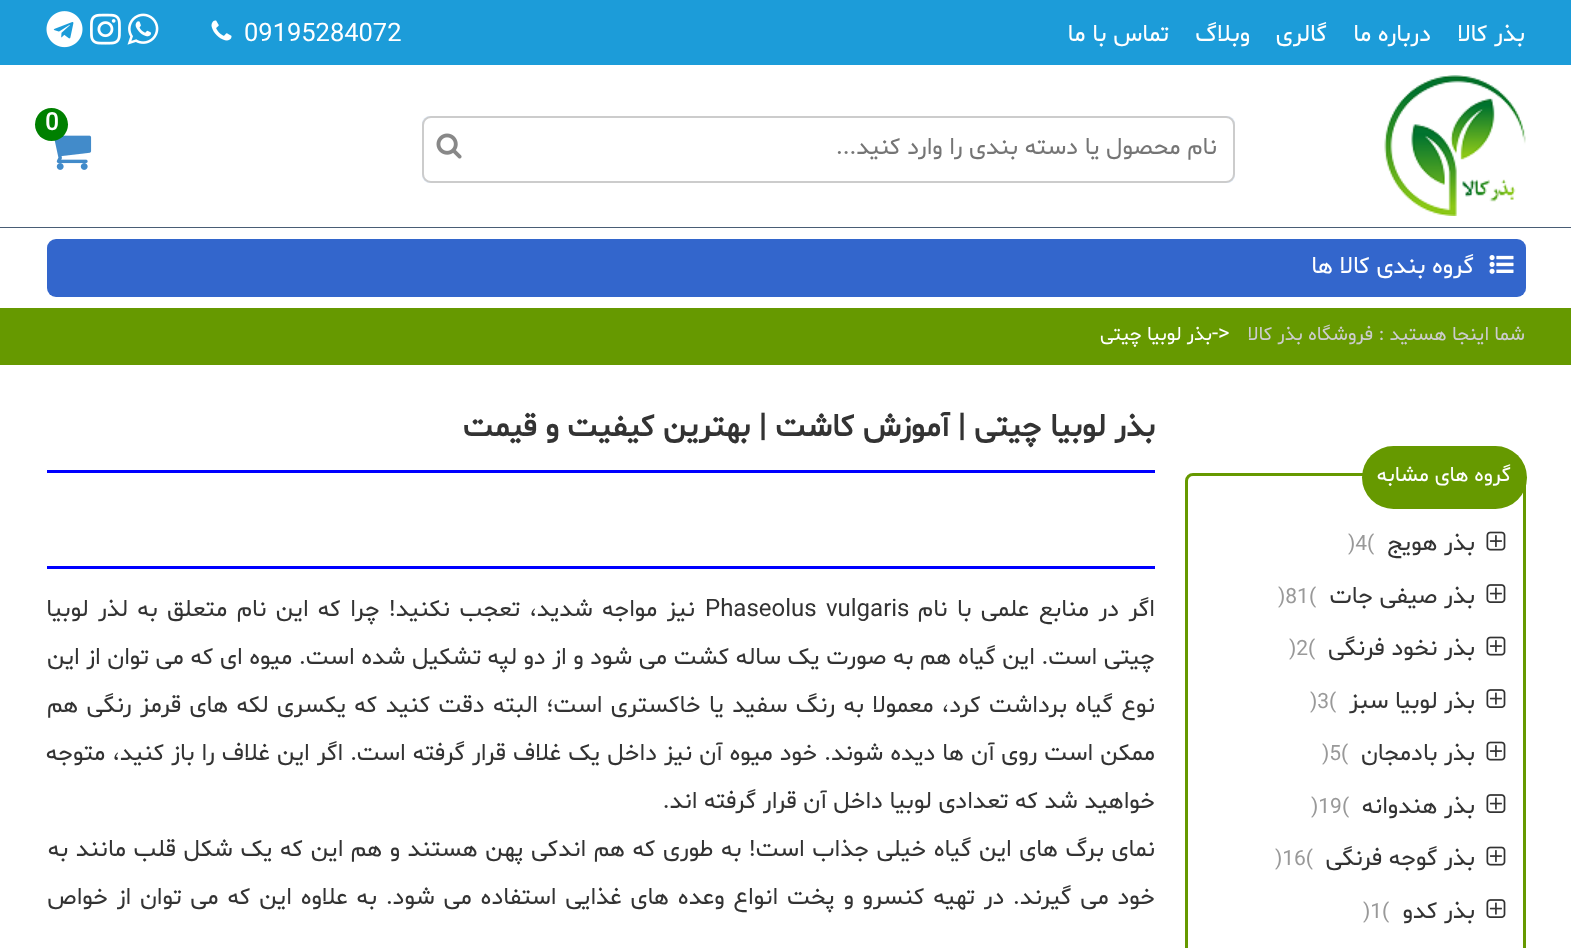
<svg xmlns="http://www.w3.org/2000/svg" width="1571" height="948">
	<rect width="100%" height="100%" fill="#FFFFFF" />
	<rect x="0" y="0" width="1571" height="65" fill="#1C9CD9" />
	<g font-family="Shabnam" font-size="24" direction="rtl" fill="#FFFFFF">
		<text x="1525" y="41">بذر کالا</text>
		<text x="1431" y="41">درباره ما</text>
		<text x="1327" y="41">گالری</text>
		<text x="1250" y="41">وبلاگ</text>
		<text x="1169" y="41">تماس با ما</text>
	</g>
	<text x="244" y="41" font-family="Shabnam" font-size="25.5" fill="#FFFFFF">09195284072</text>
	<image x="211" y="20" width="21" height="21" href="assets/img1.png" />
	<image x="127" y="13" width="32" height="32" href="assets/img2.png" />
	<image x="90" y="13" width="31" height="32" href="assets/img3.png" />
	<image x="46" y="11" width="37" height="37" href="assets/img4.png" />
	<rect x="0" y="227" width="1571" height="1" fill="#495D75" />
	<image x="1384" y="75" width="142" height="141" href="assets/img5.png" />
	<image x="54" y="135" width="38" height="35" href="assets/img6.png" />
	<circle cx="51.5" cy="124.5" r="16.5" fill="#008000" />
	<text x="45" y="130" font-family="Shabnam" font-size="24" font-weight="700" fill="#FFFFFF">0</text>
	<rect x="422" y="116" width="813" height="67" rx="8" fill="#DEE9F7" />
	<rect x="423" y="117" width="811" height="65" rx="8" fill="#FFFFFF" stroke="#CCCCCC" stroke-width="2" />
	<text x="1217" y="154" font-family="Shabnam" font-size="24" direction="rtl" fill="#757575">نام محصول یا دسته بندی را وارد کنید...</text>
	<image x="436" y="133" width="26" height="26" href="assets/img7.png" />
	<rect x="47" y="239" width="1479" height="58" rx="9" fill="#3366CC" />
	<image x="1489" y="255" width="25" height="19" href="assets/img8.png" />
	<text x="1474" y="273" font-family="Shabnam" font-size="24" direction="rtl" fill="#FFFFFF">گروه بندی کالا ها</text>
	<rect x="0" y="308" width="1571" height="57" fill="#669900" />
	<g font-family="Shabnam" font-size="19.5" direction="rtl" fill="#CCCCCC">
		<text x="1525" y="340">شما اینجا هستید :</text>
		<text x="1373" y="340">فروشگاه بذر کالا</text>
	</g>
	<text x="1212" y="340" font-family="Shabnam" font-size="22" fill="#FFFFFF">-&gt;</text>
	<text x="1212" y="340" font-family="Shabnam" font-size="19.5" direction="rtl" fill="#FFFFFF">بذر لوبیا چیتی</text>
	<rect x="1186.5" y="474.5" width="338" height="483" rx="6.5" fill="none" stroke="#669900" stroke-width="3" />
	<rect x="1362" y="446" width="165" height="63" rx="31.5" fill="#669900" />
	<text x="1511" y="481" font-family="Shabnam" font-size="21" direction="rtl" fill="#FFFFFF">گروه های مشابه</text>
	<image x="1486" y="531" width="20" height="20" href="assets/img9.png" />
	<text x="1475" y="550" font-family="Shabnam" font-size="24" direction="rtl" fill="#333333">بذر هویج</text>
	<text x="1348" y="550" font-family="Shabnam" font-size="21" fill="#999999">)4(</text>
	<image x="1486" y="584" width="20" height="19" href="assets/img10.png" />
	<text x="1475" y="603" font-family="Shabnam" font-size="24" direction="rtl" fill="#333333">بذر صیفی جات</text>
	<text x="1278" y="603" font-family="Shabnam" font-size="21" fill="#999999">)81(</text>
	<image x="1486" y="636" width="20" height="20" href="assets/img9.png" />
	<text x="1475" y="655" font-family="Shabnam" font-size="24" direction="rtl" fill="#333333">بذر نخود فرنگی</text>
	<text x="1289" y="655" font-family="Shabnam" font-size="21" fill="#999999">)2(</text>
	<image x="1486" y="689" width="20" height="19" href="assets/img10.png" />
	<text x="1475" y="708" font-family="Shabnam" font-size="24" direction="rtl" fill="#333333">بذر لوبیا سبز</text>
	<text x="1310" y="708" font-family="Shabnam" font-size="21" fill="#999999">)3(</text>
	<image x="1486" y="741" width="20" height="20" href="assets/img9.png" />
	<text x="1475" y="760" font-family="Shabnam" font-size="24" direction="rtl" fill="#333333">بذر بادمجان</text>
	<text x="1322" y="760" font-family="Shabnam" font-size="21" fill="#999999">)5(</text>
	<image x="1486" y="794" width="20" height="19" href="assets/img10.png" />
	<text x="1475" y="813" font-family="Shabnam" font-size="24" direction="rtl" fill="#333333">بذر هندوانه</text>
	<text x="1311" y="813" font-family="Shabnam" font-size="21" fill="#999999">)19(</text>
	<image x="1486" y="846" width="20" height="20" href="assets/img9.png" />
	<text x="1475" y="865" font-family="Shabnam" font-size="24" direction="rtl" fill="#333333">بذر گوجه فرنگی</text>
	<text x="1275" y="865" font-family="Shabnam" font-size="21" fill="#999999">)16(</text>
	<image x="1486" y="899" width="20" height="19" href="assets/img10.png" />
	<text x="1475" y="918" font-family="Shabnam" font-size="24" direction="rtl" fill="#333333">بذر کدو</text>
	<text x="1363" y="918" font-family="Shabnam" font-size="21" fill="#999999">)1(</text>
	<rect x="47" y="470" width="1108" height="3" fill="#0000FF" />
	<text x="1155" y="436" font-family="Shabnam" font-size="31.5" font-weight="700" direction="rtl" fill="#333333">بذر لوبیا چیتی | آموزش کاشت | بهترین کیفیت و قیمت</text>
	<rect x="47" y="566" width="1108" height="3" fill="#0000FF" />
	<text x="1155" y="616" word-spacing="2.75" font-family="Shabnam" font-size="24" direction="rtl" fill="#333333">اگر در منابع علمی با نام</text>
	<text x="705" y="616" word-spacing="2.75" font-family="Shabnam" font-size="24" fill="#333333">Phaseolus vulgaris</text>
	<g font-family="Shabnam" font-size="24" direction="rtl" fill="#333333">
		<text x="695" y="616" word-spacing="2.75">نیز مواجه شدید، تعجب نکنید! چرا که این نام متعلق به لذر لوبیا</text>
		<text x="1155" y="664">چیتی است. این گیاه هم به صورت یک ساله کشت می شود و از دو لپه تشکیل شده است. میوه ای که می توان از این</text>
		<text x="1155" y="712" word-spacing="1.75">نوع گیاه برداشت کرد، معمولا به رنگ سفید یا خاکستری است؛ البته دقت کنید که یکسری لکه های قرمز رنگی هم</text>
		<text x="1155" y="760" word-spacing="0.4">ممکن است روی آن ها دیده شوند. خود میوه آن نیز داخل یک غلاف قرار گرفته است. اگر این غلاف را باز کنید، متوجه</text>
		<text x="1155" y="808">خواهید شد که تعدادی لوبیا داخل آن قرار گرفته اند.</text>
		<text x="1155" y="856" word-spacing="1">نمای برگ های این گیاه خیلی جذاب است! به طوری که هم اندکی پهن هستند و هم این که یک شکل قلب مانند به</text>
		<text x="1155" y="904" word-spacing="2.2">خود می گیرند. در تهیه کنسرو و پخت انواع وعده های غذایی استفاده می شود. به علاوه این که می توان از خواص</text>
	</g>
</svg>
